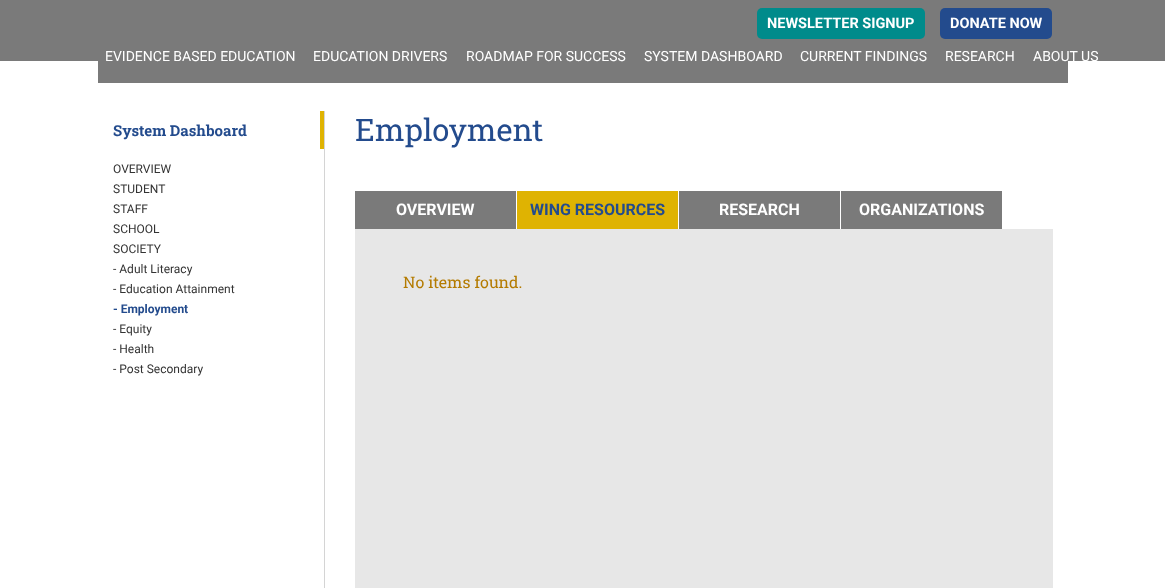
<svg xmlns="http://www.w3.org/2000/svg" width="1165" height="588">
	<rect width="100%" height="100%" fill="#FFFFFF" />
	<rect x="0" y="0" width="1165" height="61" fill="#7A7A7A" />
	<rect x="757" y="8" width="168" height="31" rx="5" fill="#008B8B" />
	<text x="767" y="28" font-family="Roboto" font-size="14.5" font-weight="700" fill="#FFFFFF">NEWSLETTER SIGNUP</text>
	<rect x="940" y="8" width="112" height="31" rx="5" fill="#234B8D" />
	<text x="950" y="28" font-family="Roboto" font-size="14.5" font-weight="700" fill="#FFFFFF">DONATE NOW</text>
	<rect x="98" y="61" width="970" height="22" fill="#7A7A7A" />
	<g font-family="Roboto" font-size="14" fill="#FFFFFF">
		<text x="105" y="61">EVIDENCE BASED EDUCATION</text>
		<text x="313" y="61">EDUCATION DRIVERS</text>
		<text x="466" y="61">ROADMAP FOR SUCCESS</text>
		<text x="644" y="61">SYSTEM DASHBOARD</text>
		<text x="800" y="61">CURRENT FINDINGS</text>
		<text x="945" y="61">RESEARCH</text>
		<text x="1033" y="61">ABOUT US</text>
	</g>
	<rect x="324" y="111" width="1" height="477" fill="#D4D4D4" />
	<rect x="320" y="111" width="4" height="38" fill="#DFB302" />
	<text x="113" y="136" font-family="Roboto Slab" font-size="15" font-weight="700" fill="#234B8D">System Dashboard</text>
	<g font-family="Roboto" font-size="12" fill="#333333">
		<text x="113" y="173">OVERVIEW</text>
		<text x="113" y="193">STUDENT</text>
		<text x="113" y="213">STAFF</text>
		<text x="113" y="233">SCHOOL</text>
		<text x="113" y="253">SOCIETY</text>
		<text x="113" y="273">- Adult Literacy</text>
		<text x="113" y="293">- Education Attainment</text>
	</g>
	<text x="113" y="313" font-family="Roboto" font-size="12" font-weight="700" fill="#234B8D">- Employment</text>
	<g font-family="Roboto" font-size="12" fill="#333333">
		<text x="113" y="333">- Equity</text>
		<text x="113" y="353">- Health</text>
		<text x="113" y="373">- Post Secondary</text>
	</g>
	<text x="355" y="141" font-family="Roboto Slab" font-size="31" fill="#234B8D">Employment</text>
	<rect x="355" y="191" width="161" height="38" fill="#7A7A7A" />
	<text x="396" y="215" font-family="Roboto" font-size="16" font-weight="700" fill="#FFFFFF">OVERVIEW</text>
	<rect x="517" y="191" width="161" height="38" fill="#DFB302" />
	<text x="530" y="215" font-family="Roboto" font-size="16" font-weight="700" fill="#234B8D">WING RESOURCES</text>
	<rect x="679" y="191" width="161" height="38" fill="#7A7A7A" />
	<text x="719" y="215" font-family="Roboto" font-size="16" font-weight="700" fill="#FFFFFF">RESEARCH</text>
	<rect x="841" y="191" width="161" height="38" fill="#7A7A7A" />
	<text x="859" y="215" font-family="Roboto" font-size="16" font-weight="700" fill="#FFFFFF">ORGANIZATIONS</text>
	<rect x="355" y="229" width="698" height="359" fill="#E7E7E7" />
	<text x="403" y="288" font-family="Roboto Slab" font-size="16" fill="#B47B01">No items found.</text>
</svg>
